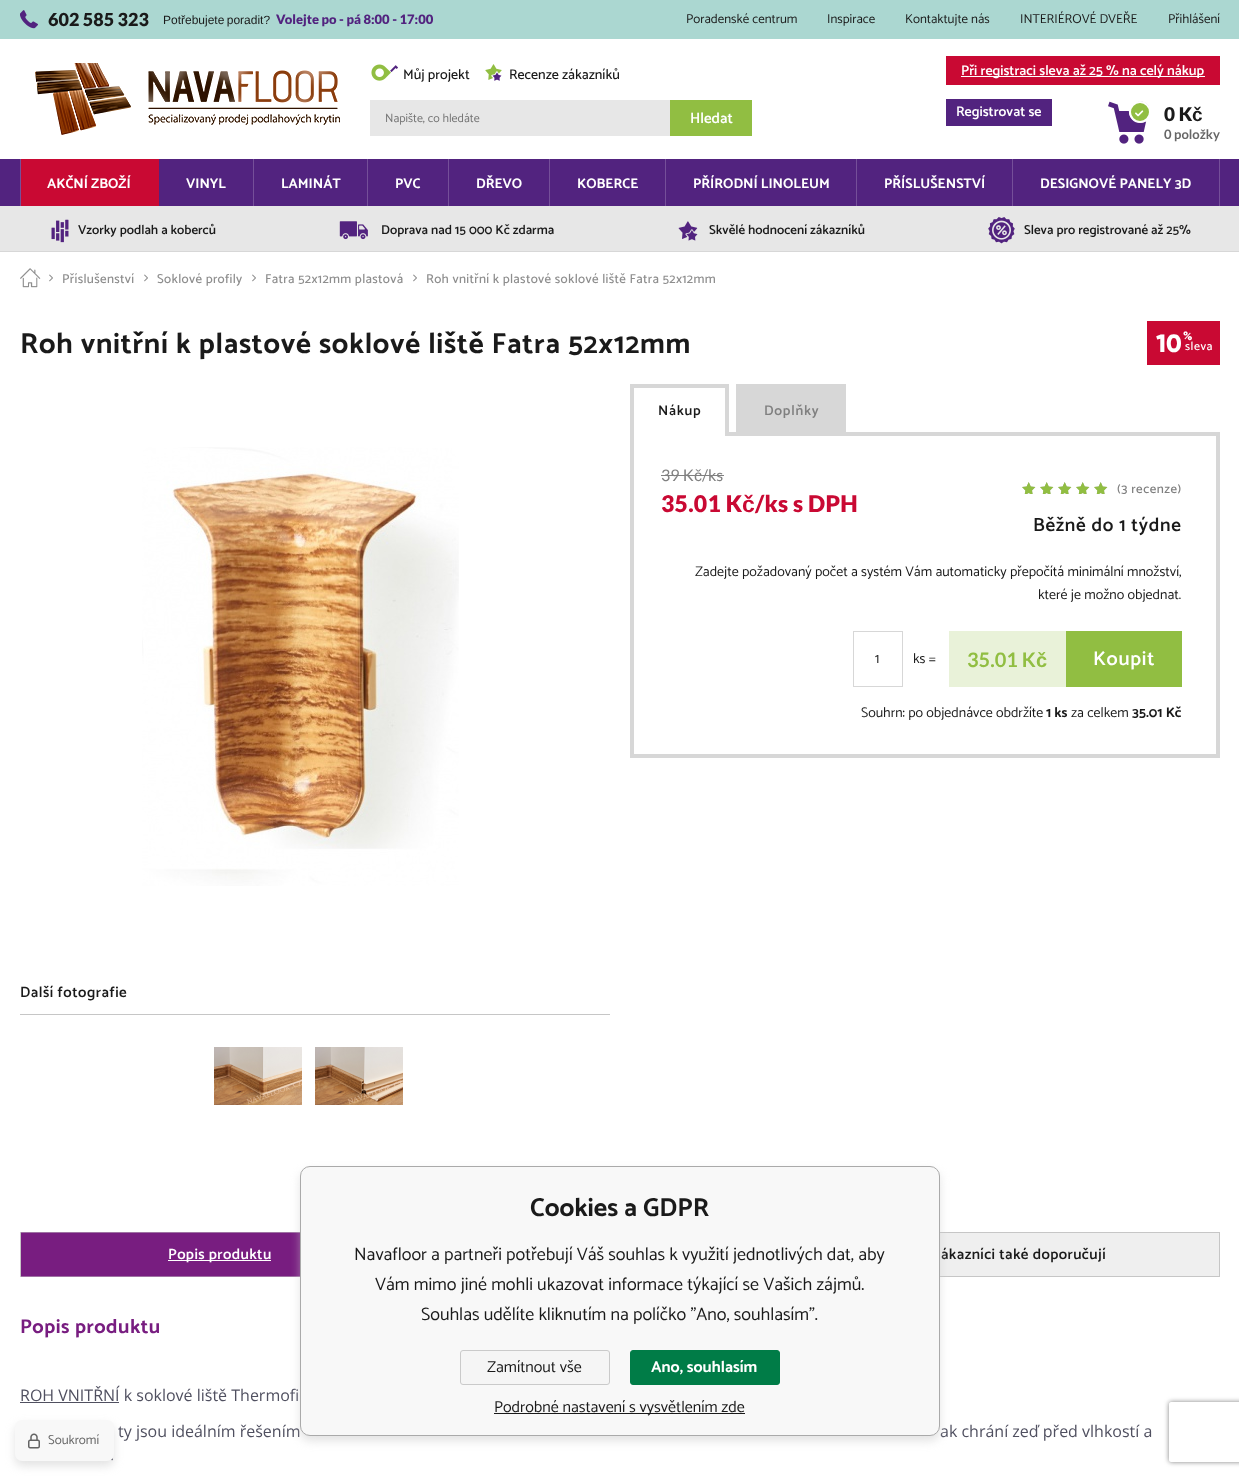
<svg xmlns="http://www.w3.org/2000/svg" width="1239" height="1476">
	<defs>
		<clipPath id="clip1"><path d="M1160 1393H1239V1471H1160ZM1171 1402H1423C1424 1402 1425 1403 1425 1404V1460C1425 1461 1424 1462 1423 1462H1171C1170 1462 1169 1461 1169 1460V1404C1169 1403 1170 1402 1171 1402Z" clip-rule="evenodd" /></clipPath>
	</defs>
	<rect width="100%" height="100%" fill="#FFFFFF" />
	<rect x="0" y="0" width="1239" height="39" fill="#ABD7D1" />
	<image x="20" y="10" width="18" height="19" href="assets/img1.png" />
	<text x="48" y="26" font-family="Lato" font-size="18" font-weight="900" fill="#1A1A1A">602 585 323</text>
	<text x="163" y="24" word-spacing="-1" font-family="Liberation Sans" font-size="12" fill="#1A1A1A">Potřebujete poradit?</text>
	<text x="276" y="24" font-family="Lato" font-size="13" font-weight="900" fill="#52237F">Volejte po - pá 8:00 - 17:00</text>
	<g font-family="Catamaran" font-size="13" fill="#1A1A1A">
		<text x="686" y="23">Poradenské centrum</text>
		<text x="827" y="23">Inspirace</text>
		<text x="905" y="23">Kontaktujte nás</text>
		<text x="1020" y="23">INTERIÉROVÉ DVEŘE</text>
		<text x="1168" y="23">Přihlášení</text>
	</g>
	<image x="35" y="63" width="305" height="72" href="assets/img2.png" />
	<image x="371" y="64" width="27" height="17" href="assets/img3.png" />
	<text x="403" y="79" font-family="Catamaran" font-size="14" font-weight="500" fill="#1A1A1A">Můj projekt</text>
	<image x="485" y="64" width="17" height="17" href="assets/img4.png" />
	<text x="509" y="79" font-family="Catamaran" font-size="14" font-weight="500" fill="#1A1A1A">Recenze zákazníků</text>
	<rect x="370" y="100" width="300" height="36" fill="#E7E7E7" />
	<text x="385" y="122" font-family="Catamaran" font-size="12" fill="#757575">Napište, co hledáte</text>
	<rect x="670" y="100" width="82" height="36" fill="#91BE42" />
	<text x="690" y="123" font-family="Catamaran" font-size="15" font-weight="600" fill="#FFFFFF">Hledat</text>
	<rect x="946" y="56" width="274" height="29" fill="#C90933" />
	<rect x="961" y="76" width="244" height="1" fill="#FFFFFF" />
	<text x="961" y="75" font-family="Catamaran" font-size="14" font-weight="600" fill="#FFFFFF">Při registraci sleva až 25 % na celý nákup</text>
	<rect x="946" y="99" width="106" height="27" fill="#52237F" />
	<text x="956" y="116" font-family="Catamaran" font-size="14" font-weight="600" fill="#FFFFFF">Registrovat se</text>
	<image x="1108" y="101" width="42" height="43" href="assets/img5.png" />
	<circle cx="1140" cy="112" r="10" fill="#91BE42" stroke="#FFFFFF" stroke-width="2" />
	<image x="1135" y="110" width="9" height="7" href="assets/img6.png" />
	<text x="1164" y="121" font-family="Lato" font-size="19" font-weight="900" fill="#1A1A1A">0 K</text>
	<text x="1192" y="121" font-family="Liberation Sans" font-size="19" font-weight="700" fill="#1A1A1A">č</text>
	<text x="1164" y="139" font-family="Lato" font-size="13" font-weight="700" fill="#666666">0 položky</text>
	<rect x="0" y="159" width="1239" height="47" fill="#52237F" />
	<rect x="21" y="159" width="138" height="47" fill="#C90933" />
	<rect x="20" y="159" width="1" height="47" fill="#754F99" />
	<text x="47" y="188" font-family="Catamaran" font-size="14" font-weight="700" fill="#FFFFFF">AKČNÍ ZBOŽÍ</text>
	<rect x="253" y="159" width="1" height="47" fill="#754F99" />
	<text x="186" y="188" font-family="Catamaran" font-size="14" font-weight="700" fill="#FFFFFF">VINYL</text>
	<rect x="367" y="159" width="1" height="47" fill="#754F99" />
	<text x="281" y="188" font-family="Catamaran" font-size="14" font-weight="700" fill="#FFFFFF">LAMINÁT</text>
	<rect x="448" y="159" width="1" height="47" fill="#754F99" />
	<text x="395" y="188" font-family="Catamaran" font-size="14" font-weight="700" fill="#FFFFFF">PVC</text>
	<rect x="549" y="159" width="1" height="47" fill="#754F99" />
	<text x="476" y="188" font-family="Catamaran" font-size="14" font-weight="700" fill="#FFFFFF">DŘEVO</text>
	<rect x="665" y="159" width="1" height="47" fill="#754F99" />
	<text x="577" y="188" font-family="Catamaran" font-size="14" font-weight="700" fill="#FFFFFF">KOBERCE</text>
	<rect x="856" y="159" width="1" height="47" fill="#754F99" />
	<text x="693" y="188" font-family="Catamaran" font-size="14" font-weight="700" fill="#FFFFFF">PŘÍRODNÍ LINOLEUM</text>
	<rect x="1012" y="159" width="1" height="47" fill="#754F99" />
	<text x="884" y="188" font-family="Catamaran" font-size="14" font-weight="700" fill="#FFFFFF">PŘÍSLUŠENSTVÍ</text>
	<rect x="1219" y="159" width="1" height="47" fill="#754F99" />
	<text x="1040" y="188" font-family="Catamaran" font-size="14" font-weight="700" fill="#FFFFFF">DESIGNOVÉ PANELY 3D</text>
	<rect x="0" y="206" width="1239" height="45" fill="#E7E7E7" />
	<rect x="0" y="251" width="1239" height="1" fill="#D7D7D7" />
	<image x="51" y="219" width="18" height="24" href="assets/img7.png" />
	<text x="78" y="234" font-family="Catamaran" font-size="13" font-weight="600" fill="#1A1A1A">Vzorky podlah a koberců</text>
	<image x="339" y="221" width="29" height="19" href="assets/img8.png" />
	<text x="381" y="234" font-family="Catamaran" font-size="13" font-weight="600" fill="#1A1A1A">Doprava nad 15 000 Kč zdarma</text>
	<image x="678" y="221" width="20" height="20" href="assets/img9.png" />
	<text x="709" y="234" font-family="Catamaran" font-size="13" font-weight="600" fill="#1A1A1A">Skvělé hodnocení zákazníků</text>
	<image x="988" y="217" width="27" height="27" href="assets/img10.png" />
	<text x="1024" y="234" font-family="Catamaran" font-size="13" font-weight="600" fill="#1A1A1A">Sleva pro registrované až 25%</text>
	<image x="20" y="268" width="21" height="20" href="assets/img11.png" />
	<image x="49" y="274" width="4" height="8" href="assets/img12.png" />
	<text x="62" y="283" font-family="Catamaran" font-size="13" font-weight="500" letter-spacing="0.33" fill="#8E8E8E">Příslušenství</text>
	<image x="144" y="274" width="4" height="8" href="assets/img12.png" />
	<text x="157" y="283" font-family="Catamaran" font-size="13" font-weight="500" letter-spacing="0.33" fill="#8E8E8E">Soklové profily</text>
	<image x="252" y="274" width="4" height="8" href="assets/img12.png" />
	<text x="265" y="283" font-family="Catamaran" font-size="13" font-weight="500" letter-spacing="0.33" fill="#8E8E8E">Fatra 52x12mm plastová</text>
	<image x="413" y="274" width="4" height="8" href="assets/img12.png" />
	<text x="426" y="283" font-family="Catamaran" font-size="13" font-weight="500" letter-spacing="0.33" fill="#8E8E8E">Roh vnitřní k plastové soklové liště Fatra 52x12mm</text>
	<text x="20" y="353" font-family="Catamaran" font-size="29" font-weight="700" letter-spacing="0.7" fill="#1A1A1A">Roh vnitřní k plastové soklové liště Fatra 52x12mm</text>
	<rect x="1147" y="321" width="73" height="44" fill="#C90933" />
	<text x="1156" y="352" font-family="Gilroy" font-size="25" font-weight="800" fill="#FFFFFF">10</text>
	<text x="1183" y="340" font-family="Gilroy" font-size="12" font-weight="800" fill="#FFFFFF">%</text>
	<text x="1185" y="350" font-family="Catamaran" font-size="12" font-weight="500" letter-spacing="0.5" fill="#FFFFFF">sleva</text>
	<rect x="630" y="384" width="99" height="4" fill="#D7D7D7" />
	<rect x="725" y="384" width="4" height="48" fill="#D7D7D7" />
	<rect x="630" y="384" width="4" height="48" fill="#D7D7D7" />
	<text x="658" y="415" font-family="Catamaran" font-size="14" font-weight="600" letter-spacing="0.75" fill="#1A1A1A">Nákup</text>
	<rect x="632" y="434" width="586" height="322" fill="none" stroke="#D7D7D7" stroke-width="4" />
	<rect x="634" y="432" width="91" height="4" fill="#FFFFFF" />
	<rect x="736" y="384" width="110" height="48" fill="#D7D7D7" />
	<text x="764" y="415" font-family="Catamaran" font-size="14" font-weight="600" letter-spacing="0.75" fill="#808080">Doplňky</text>
	<text x="661" y="481" font-family="Lato" font-size="16" fill="#808080">39 K</text>
	<rect x="661" y="475" width="18" height="1" fill="#808080" />
	<text x="694" y="481" font-family="Liberation Sans" font-size="16" fill="#808080">č</text>
	<rect x="679" y="475" width="45" height="1" fill="#808080" />
	<text x="702" y="481" font-family="Lato" font-size="16" fill="#808080">/ks</text>
	<text x="661" y="512" font-family="Lato" font-size="23" font-weight="900" letter-spacing="0.25" fill="#C90933">35.01 K</text>
	<text x="742" y="512" font-family="Liberation Sans" font-size="23" font-weight="700" letter-spacing="0.25" fill="#C90933">č</text>
	<text x="755" y="512" font-family="Lato" font-size="23" font-weight="900" letter-spacing="0.25" fill="#C90933">/ks s DPH</text>
	<image x="1022" y="482" width="86" height="12" href="assets/img13.png" />
	<image x="1022" y="482" width="86" height="12" href="assets/img14.png" />
	<text x="1117" y="493" font-family="Catamaran" font-size="13" font-weight="500" letter-spacing="0.5" fill="#808080">(3 recenze)</text>
	<text x="1033" y="531" font-family="Catamaran" font-size="19" font-weight="600" letter-spacing="0.7" fill="#1A1A1A">Běžně do 1 týdne</text>
	<g font-family="Catamaran" font-size="14" fill="#1A1A1A">
		<text x="695" y="576">Zadejte požadovaný počet a systém Vám automaticky přepočítá minimální množství,</text>
		<text x="1038" y="599">které je možno objednat.</text>
	</g>
	<rect x="853.5" y="631.5" width="49" height="55" fill="none" stroke="#D7D7D7" />
	<g font-family="Catamaran" font-size="14" fill="#1A1A1A">
		<text x="875" y="663">1</text>
		<text x="913" y="663">ks =</text>
	</g>
	<rect x="949" y="631" width="117" height="56" fill="#E9F2D9" />
	<text x="967" y="667" font-family="Lato" font-size="20" font-weight="700" fill="#91BE42">35.01 K</text>
	<text x="1036" y="667" font-family="Liberation Sans" font-size="20" font-weight="700" fill="#91BE42">č</text>
	<rect x="1066" y="631" width="116" height="56" fill="#91BE42" />
	<text x="1093" y="665" font-family="Catamaran" font-size="20" font-weight="600" letter-spacing="0.75" fill="#FFFFFF">Koupit</text>
	<text x="861" y="717" font-family="Catamaran" font-size="14" fill="#1A1A1A">Souhrn: po objednávce obdržíte</text>
	<text x="1046" y="717" font-family="Catamaran" font-size="14" font-weight="700" fill="#1A1A1A">1 ks</text>
	<text x="1071" y="717" font-family="Catamaran" font-size="14" fill="#1A1A1A">za celkem</text>
	<text x="1132" y="717" font-family="Catamaran" font-size="14" font-weight="700" fill="#1A1A1A">35.01 Kč</text>
	<image x="142" y="447" width="317" height="439" href="assets/img15.png" />
	<rect x="20" y="1014" width="590" height="1" fill="#C6C6C6" />
	<text x="20" y="997" font-family="Catamaran" font-size="15" font-weight="600" letter-spacing="0.5" fill="#1A1A1A">Další fotografie</text>
	<image x="214" y="1047" width="88" height="58" href="assets/img16.png" />
	<image x="315" y="1047" width="88" height="58" href="assets/img17.png" />
	<rect x="20" y="1232" width="1" height="45" fill="#C6C6C6" />
	<rect x="21" y="1233" width="279" height="43" fill="#781D80" />
	<rect x="21" y="1232" width="279" height="1" fill="#9F72A3" />
	<rect x="21" y="1276" width="279" height="1" fill="#9F72A3" />
	<rect x="168" y="1260" width="103" height="1" fill="#FFFFFF" />
	<text x="168" y="1259" font-family="Catamaran" font-size="15" font-weight="600" letter-spacing="0.4" fill="#FFFFFF">Popis produktu</text>
	<rect x="940" y="1233" width="279" height="43" fill="#EFEFEF" />
	<rect x="940" y="1232" width="280" height="1" fill="#C6C6C6" />
	<rect x="1219" y="1232" width="1" height="45" fill="#C6C6C6" />
	<rect x="940" y="1276" width="280" height="1" fill="#C6C6C6" />
	<text x="941" y="1259" font-family="Catamaran" font-size="15" font-weight="600" letter-spacing="0.4" fill="#1A1A1A">ákazníci také doporučují</text>
	<text x="20" y="1333" font-family="Catamaran" font-size="20" font-weight="700" letter-spacing="0.5" fill="#781D80">Popis produktu</text>
	<text x="20" y="1401" font-family="Open Sans" font-size="16" fill="#505060">ROH VNITŘNÍ k soklové liště Thermofi</text>
	<rect x="20" y="1402" width="99" height="1" fill="#505060" />
	<g font-family="Open Sans" font-size="16" fill="#505060">
		<text x="118" y="1437">ty jsou ideálním řešením</text>
		<text x="940" y="1437">ak chrání zeď před vlhkostí a</text>
		<text x="110" y="1460">.</text>
	</g>
	<rect x="300" y="1171" width="640" height="270" rx="10" fill="#C8C8C8" fill-opacity="0.5" filter="blur(5px)" />
	<rect x="300.5" y="1166.5" width="639" height="269" rx="9.5" fill="#F8F8F8" stroke="#AAAAAA" />
	<text x="530" y="1216" font-family="Catamaran" font-size="26" font-weight="700" fill="#1A1A1A">Cookies a GDPR</text>
	<g font-family="Catamaran" font-size="18" fill="#1A1A1A">
		<text x="354" y="1260">Navafloor a partneři potřebují Váš souhlas k využití jednotlivých dat, aby</text>
		<text x="375" y="1290">Vám mimo jiné mohli ukazovat informace týkající se Vašich zájmů.</text>
		<text x="421" y="1320">Souhlas udělíte kliknutím na políčko "Ano, souhlasím".</text>
	</g>
	<rect x="460.5" y="1350.5" width="149" height="34" rx="2.5" fill="#F5F5F5" stroke="#CACACA" />
	<text x="487" y="1372" font-family="Catamaran" font-size="16" fill="#1A1A1A">Zamítnout vše</text>
	<rect x="630.5" y="1350.5" width="149" height="34" rx="2.5" fill="#007C47" stroke="#007C47" />
	<text x="651" y="1372" font-family="Catamaran" font-size="16" font-weight="700" fill="#FFFFFF">Ano, souhlasím</text>
	<rect x="494" y="1413" width="251" height="1" fill="#1A1A1A" />
	<text x="494" y="1412" font-family="Catamaran" font-size="16" fill="#1A1A1A">Podrobné nastavení s vysvětlením zde</text>
	<rect x="15" y="1425" width="99" height="41" rx="7" fill="#C8C8C8" fill-opacity="0.5" filter="blur(5px)" />
	<rect x="15" y="1420" width="99" height="41" rx="7" fill="#F8F8F8" />
	<image x="28" y="1433" width="12" height="16" href="assets/img18.png" />
	<text x="48" y="1444" font-family="Catamaran" font-size="13" fill="#666666">Soukromí</text>
	<g clip-path="url(#clip1)">
		<rect x="1169" y="1402" width="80" height="60" rx="2" fill="#808080" filter="blur(2.5px)" />
	</g>
</svg>
